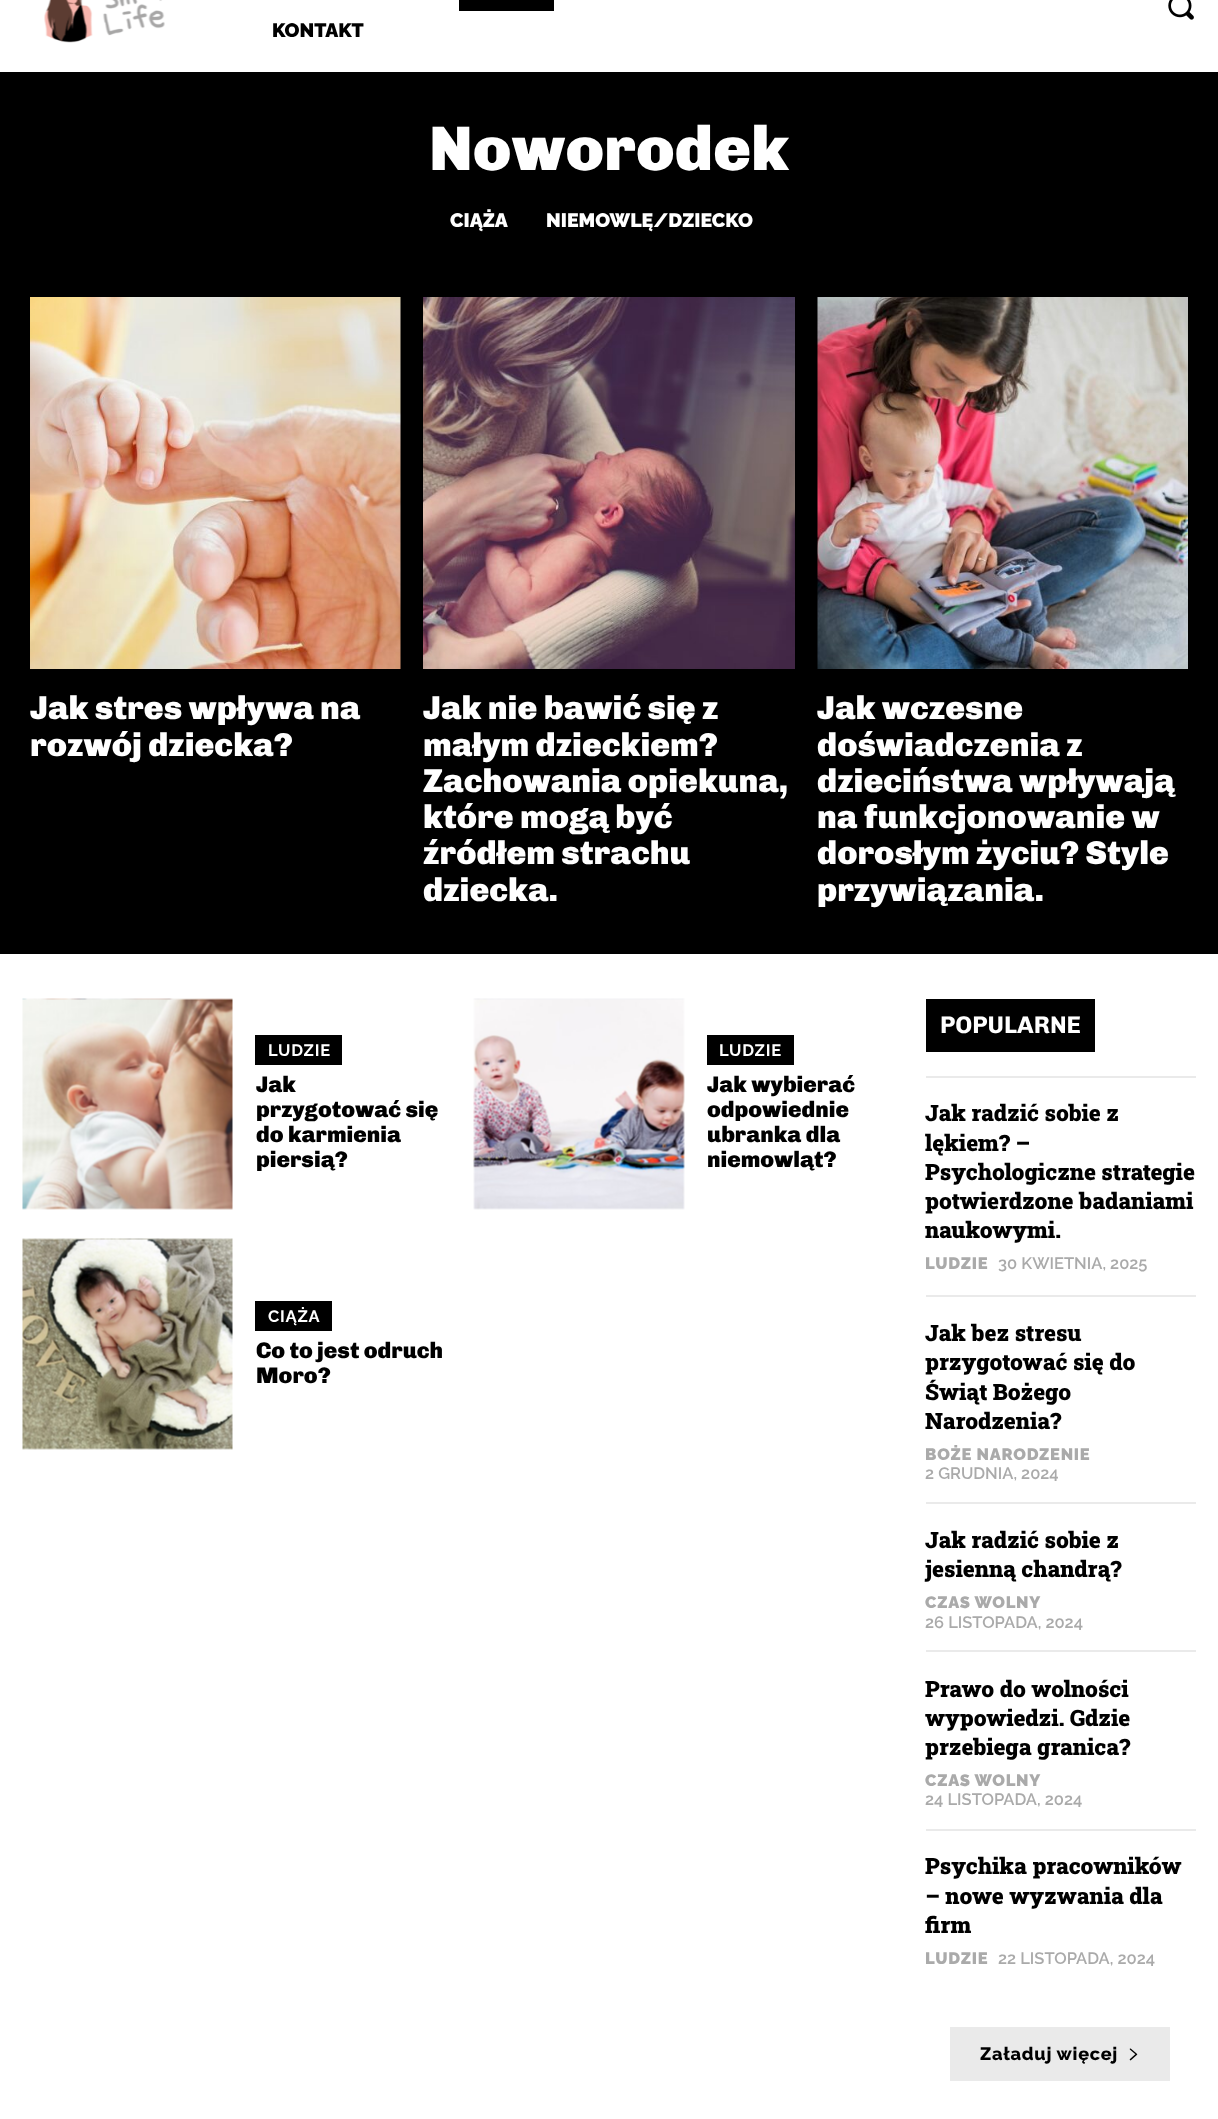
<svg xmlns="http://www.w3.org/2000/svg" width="1218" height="2119">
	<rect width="100%" height="100%" fill="#FFFFFF" />
	<image x="44" y="0" width="121" height="43" href="assets/img1.png" />
	<image x="1168" y="0" width="26" height="20" href="assets/img2.png" />
	<rect x="459" y="0" width="95" height="11" fill="#000000" />
	<text x="272" y="37" font-family="Raleway" font-size="19.5" font-weight="900" fill="#000000">KONTAKT</text>
	<rect x="0" y="72" width="1218" height="882" fill="#000000" />
	<text x="429" y="170" font-family="Chivo" font-size="63" font-weight="900" fill="#FFFFFF">Noworodek</text>
	<g font-family="Raleway" font-size="19.5" font-weight="900" fill="#FFFFFF">
		<text x="450" y="227">CIĄŻA</text>
		<text x="546" y="227">NIEMOWLĘ/DZIECKO</text>
	</g>
	<image x="30" y="297" width="371" height="372" href="assets/img3.png" />
	<g font-family="Chivo" font-size="33" font-weight="900" fill="#FFFFFF">
		<text x="30" y="719">Jak stres wpływa na</text>
		<text x="30" y="756">rozwój dziecka?</text>
	</g>
	<image x="423" y="297" width="372" height="372" href="assets/img4.png" />
	<g font-family="Chivo" font-size="33" font-weight="900" fill="#FFFFFF">
		<text x="423" y="719">Jak nie bawić się z</text>
		<text x="423" y="756">małym dzieckiem?</text>
		<text x="423" y="792">Zachowania opiekuna,</text>
		<text x="423" y="828">które mogą być</text>
		<text x="423" y="864">źródłem strachu</text>
		<text x="423" y="901">dziecka.</text>
	</g>
	<image x="817" y="297" width="371" height="372" href="assets/img5.png" />
	<g font-family="Chivo" font-size="33" font-weight="900" fill="#FFFFFF">
		<text x="817" y="719">Jak wczesne</text>
		<text x="817" y="756">doświadczenia z</text>
		<text x="817" y="792">dzieciństwa wpływają</text>
		<text x="817" y="828">na funkcjonowanie w</text>
		<text x="817" y="864">dorosłym życiu? Style</text>
		<text x="817" y="901">przywiązania.</text>
	</g>
	<image x="22" y="998" width="211" height="212" href="assets/img6.png" />
	<rect x="255" y="1035" width="87" height="30" fill="#000000" />
	<text x="268" y="1056" font-family="Raleway" font-size="16.5" font-weight="700" letter-spacing="0.75" fill="#FFFFFF">LUDZIE</text>
	<g font-family="Chivo" font-size="22.5" font-weight="900" fill="#000000">
		<text x="256" y="1092">Jak</text>
		<text x="256" y="1117">przygotować się</text>
		<text x="256" y="1142">do karmienia</text>
		<text x="256" y="1167">piersią?</text>
	</g>
	<image x="473" y="998" width="212" height="212" href="assets/img7.png" />
	<rect x="707" y="1035" width="87" height="30" fill="#000000" />
	<text x="719" y="1056" font-family="Raleway" font-size="16.5" font-weight="700" letter-spacing="0.75" fill="#FFFFFF">LUDZIE</text>
	<g font-family="Chivo" font-size="22.5" font-weight="900" fill="#000000">
		<text x="707" y="1092">Jak wybierać</text>
		<text x="707" y="1117">odpowiednie</text>
		<text x="707" y="1142">ubranka dla</text>
		<text x="707" y="1167">niemowląt?</text>
	</g>
	<image x="22" y="1238" width="211" height="212" href="assets/img8.png" />
	<rect x="255" y="1301" width="77" height="30" fill="#000000" />
	<text x="268" y="1322" font-family="Raleway" font-size="16.5" font-weight="700" letter-spacing="0.75" fill="#FFFFFF">CIĄŻA</text>
	<g font-family="Chivo" font-size="22.5" font-weight="900" fill="#000000">
		<text x="256" y="1358">Co to jest odruch</text>
		<text x="256" y="1383">Moro?</text>
	</g>
	<rect x="926" y="999" width="169" height="53" fill="#000000" />
	<text x="940" y="1033" font-family="Chivo" font-size="24" font-weight="700" fill="#FFFFFF">POPULARNE</text>
	<rect x="926" y="1076" width="270" height="2" fill="#EAEAEA" />
	<g font-family="Roboto Slab" font-size="22.5" font-weight="900" fill="#000000">
		<text x="925" y="1121">Jak radzić sobie z</text>
		<text x="925" y="1151">lękiem? –</text>
		<text x="925" y="1180">Psychologiczne strategie</text>
		<text x="925" y="1209">potwierdzone badaniami</text>
		<text x="925" y="1238">naukowymi.</text>
	</g>
	<text x="925" y="1269" font-family="Raleway" font-size="16.5" font-weight="900" letter-spacing="0.75" fill="#AAAAAA">LUDZIE</text>
	<text x="998" y="1269" font-family="Raleway" font-size="16.5" font-weight="600" fill="#AAAAAA">30 KWIETNIA, 2025</text>
	<rect x="926" y="1295" width="270" height="2" fill="#EAEAEA" />
	<g font-family="Roboto Slab" font-size="22.5" font-weight="900" fill="#000000">
		<text x="925" y="1341">Jak bez stresu</text>
		<text x="925" y="1370">przygotować się do</text>
		<text x="925" y="1400">Świąt Bożego</text>
		<text x="925" y="1429">Narodzenia?</text>
	</g>
	<text x="925" y="1460" font-family="Raleway" font-size="16.5" font-weight="900" letter-spacing="0.75" fill="#AAAAAA">BOŻE NARODZENIE</text>
	<text x="925" y="1479" font-family="Raleway" font-size="16.5" font-weight="600" fill="#AAAAAA">2 GRUDNIA, 2024</text>
	<rect x="926" y="1502" width="270" height="2" fill="#EAEAEA" />
	<g font-family="Roboto Slab" font-size="22.5" font-weight="900" fill="#000000">
		<text x="925" y="1548">Jak radzić sobie z</text>
		<text x="925" y="1577">jesienną chandrą?</text>
	</g>
	<text x="925" y="1608" font-family="Raleway" font-size="16.5" font-weight="900" letter-spacing="0.75" fill="#AAAAAA">CZAS WOLNY</text>
	<text x="925" y="1628" font-family="Raleway" font-size="16.5" font-weight="600" fill="#AAAAAA">26 LISTOPADA, 2024</text>
	<rect x="926" y="1650" width="270" height="2" fill="#EAEAEA" />
	<g font-family="Roboto Slab" font-size="22.5" font-weight="900" fill="#000000">
		<text x="925" y="1697">Prawo do wolności</text>
		<text x="925" y="1726">wypowiedzi. Gdzie</text>
		<text x="925" y="1755">przebiega granica?</text>
	</g>
	<text x="925" y="1786" font-family="Raleway" font-size="16.5" font-weight="900" letter-spacing="0.75" fill="#AAAAAA">CZAS WOLNY</text>
	<text x="925" y="1805" font-family="Raleway" font-size="16.5" font-weight="600" fill="#AAAAAA">24 LISTOPADA, 2024</text>
	<rect x="926" y="1829" width="270" height="2" fill="#EAEAEA" />
	<g font-family="Roboto Slab" font-size="22.5" font-weight="900" fill="#000000">
		<text x="925" y="1874">Psychika pracowników</text>
		<text x="925" y="1904">– nowe wyzwania dla</text>
		<text x="925" y="1933">firm</text>
	</g>
	<text x="925" y="1964" font-family="Raleway" font-size="16.5" font-weight="900" letter-spacing="0.75" fill="#AAAAAA">LUDZIE</text>
	<text x="998" y="1964" font-family="Raleway" font-size="16.5" font-weight="600" fill="#AAAAAA">22 LISTOPADA, 2024</text>
	<rect x="950" y="2027" width="220" height="54" fill="#EAEAEA" />
	<text x="980" y="2060" font-family="Raleway" font-size="18" font-weight="800" letter-spacing="0.75" fill="#000000">Załaduj więcej</text>
	<image x="1129" y="2048" width="9" height="13" href="assets/img9.png" />
</svg>
